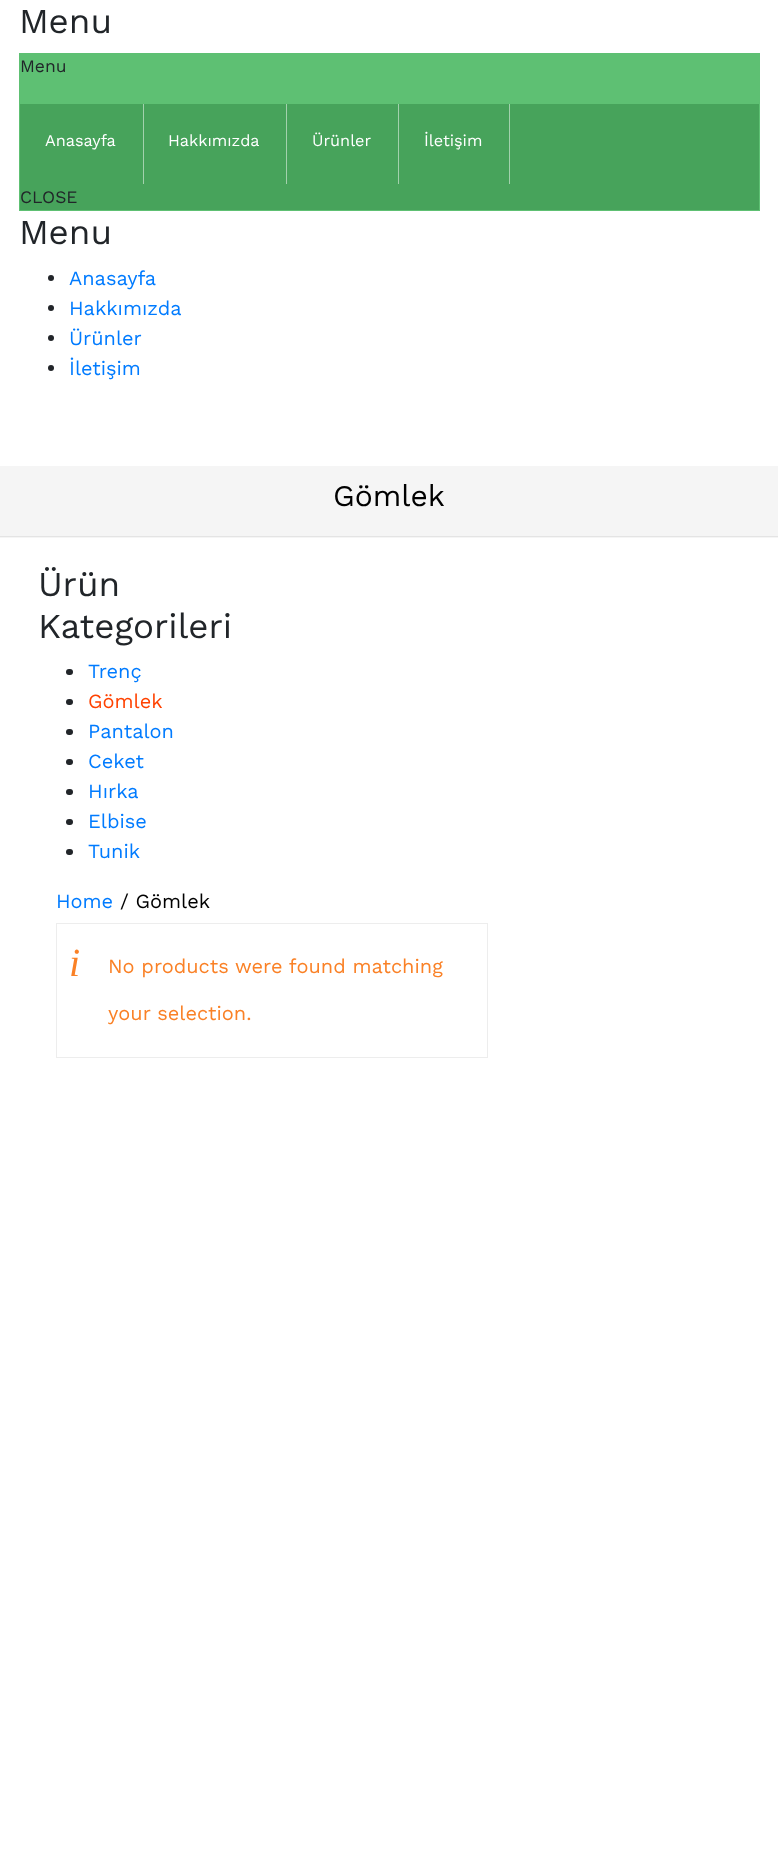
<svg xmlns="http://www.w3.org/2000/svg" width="778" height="1863">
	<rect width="100%" height="100%" fill="#FFFFFF" />
	<text x="19" y="33" font-family="Work Sans" font-size="35" fill="#212529">Menu</text>
	<rect x="20" y="104" width="739" height="106" fill="#47A35B" />
	<rect x="19.5" y="53.5" width="740" height="157" fill="none" stroke="#5EC073" />
	<rect x="20" y="54" width="739" height="50" fill="#5EC073" />
	<text x="20" y="72" font-family="Work Sans" font-size="17.5" fill="#212529">Menu</text>
	<text x="45" y="146" font-family="Work Sans" font-size="16.25" fill="#FFFFFF">Anasayfa</text>
	<rect x="143" y="104" width="1" height="80" fill="#A3D1AD" />
	<text x="168" y="146" font-family="Work Sans" font-size="16.25" fill="#FFFFFF">Hakkımızda</text>
	<rect x="286" y="104" width="1" height="80" fill="#A3D1AD" />
	<text x="312" y="146" font-family="Work Sans" font-size="16.25" fill="#FFFFFF">Ürünler</text>
	<rect x="398" y="104" width="1" height="80" fill="#A3D1AD" />
	<text x="424" y="146" font-family="Work Sans" font-size="16.25" fill="#FFFFFF">İletişim</text>
	<rect x="509" y="104" width="1" height="80" fill="#A3D1AD" />
	<text x="20" y="203" font-family="Work Sans" font-size="17.5" fill="#212529">CLOSE</text>
	<text x="19" y="244" font-family="Work Sans" font-size="35" fill="#212529">Menu</text>
	<circle cx="51" cy="278" r="3" fill="#212529" />
	<text x="69" y="285" font-family="Work Sans" font-size="20" fill="#007BFF">Anasayfa</text>
	<circle cx="51" cy="308" r="3" fill="#212529" />
	<text x="69" y="315" font-family="Work Sans" font-size="20" fill="#007BFF">Hakkımızda</text>
	<circle cx="51" cy="338" r="3" fill="#212529" />
	<text x="69" y="345" font-family="Work Sans" font-size="20" fill="#007BFF">Ürünler</text>
	<circle cx="51" cy="368" r="3" fill="#212529" />
	<text x="69" y="375" font-family="Work Sans" font-size="20" fill="#007BFF">İletişim</text>
	<rect x="0" y="466" width="778" height="72" fill="#F5F5F5" />
	<rect x="0" y="536" width="778" height="1" fill="#E4E4E4" />
	<text x="333" y="506" font-family="Work Sans" font-size="30" fill="#000000">Gömlek</text>
	<g font-family="Work Sans" font-size="35" fill="#212529">
		<text x="38" y="596">Ürün</text>
		<text x="38" y="638">Kategorileri</text>
	</g>
	<rect x="66" y="669" width="7" height="6" rx="3" fill="#212529" />
	<text x="88" y="678" font-family="Work Sans" font-size="20" fill="#007BFF">Trenç</text>
	<rect x="66" y="699" width="7" height="6" rx="3" fill="#212529" />
	<text x="88" y="708" font-family="Work Sans" font-size="20" fill="#FF4200">Gömlek</text>
	<rect x="66" y="729" width="7" height="6" rx="3" fill="#212529" />
	<text x="88" y="738" font-family="Work Sans" font-size="20" fill="#007BFF">Pantalon</text>
	<rect x="66" y="759" width="7" height="6" rx="3" fill="#212529" />
	<text x="88" y="768" font-family="Work Sans" font-size="20" fill="#007BFF">Ceket</text>
	<rect x="66" y="789" width="7" height="6" rx="3" fill="#212529" />
	<text x="88" y="798" font-family="Work Sans" font-size="20" fill="#007BFF">Hırka</text>
	<rect x="66" y="819" width="7" height="6" rx="3" fill="#212529" />
	<text x="88" y="828" font-family="Work Sans" font-size="20" fill="#007BFF">Elbise</text>
	<rect x="66" y="849" width="7" height="6" rx="3" fill="#212529" />
	<g font-family="Work Sans" font-size="20" fill="#007BFF">
		<text x="88" y="858">Tunik</text>
		<text x="56" y="908">Home</text>
	</g>
	<text x="120" y="908" font-family="Work Sans" font-size="20" fill="#000000">/ Gömlek</text>
	<rect x="56.5" y="923.5" width="431" height="134" fill="none" stroke="#EDEDED" />
	<text x="69" y="976" font-family="Liberation Serif" font-size="40" font-style="italic" fill="#FA8126">i</text>
	<g font-family="Work Sans" font-size="20" fill="#FA8126">
		<text x="108" y="973">No products were found matching</text>
		<text x="108" y="1020">your selection.</text>
	</g>
</svg>
